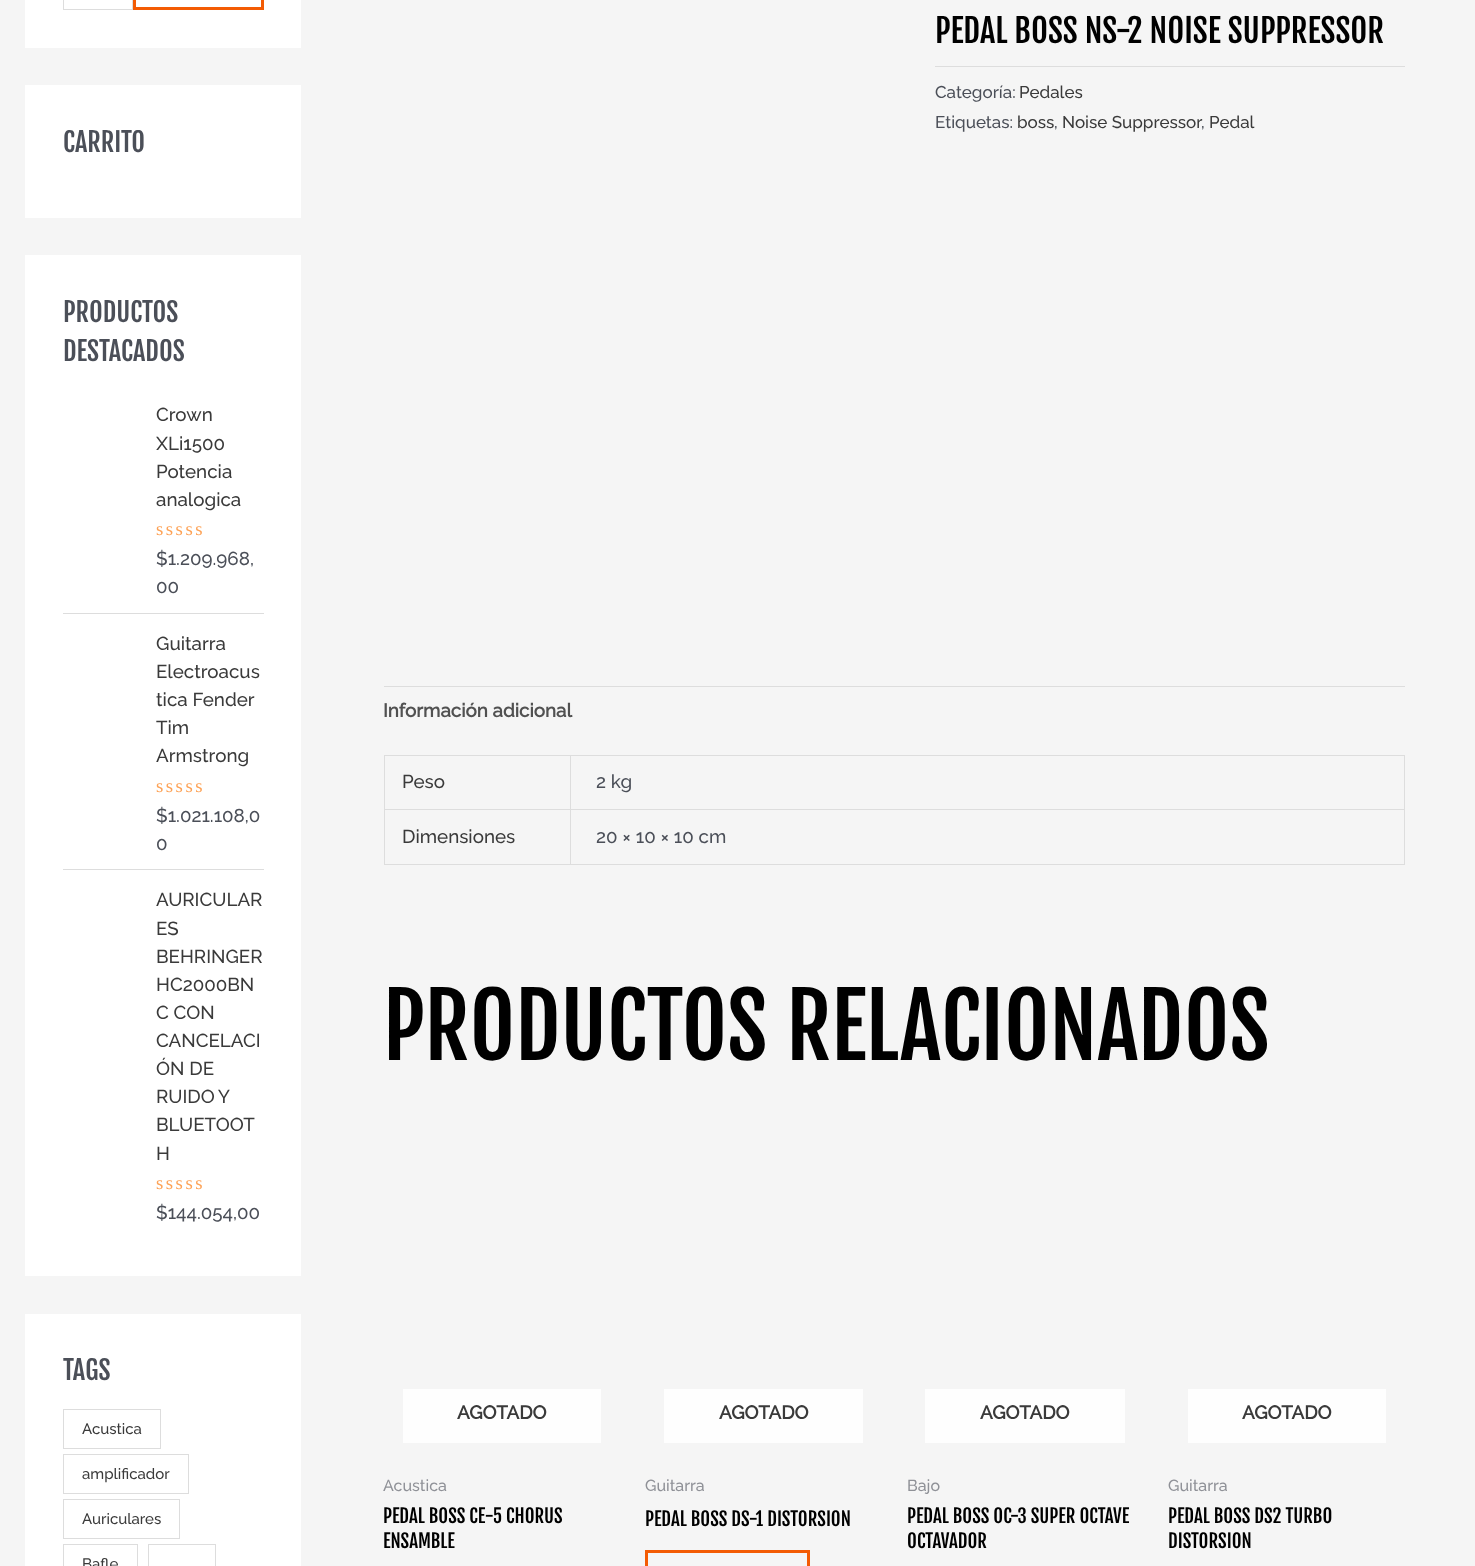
<svg xmlns="http://www.w3.org/2000/svg" width="1475" height="1566">
	<rect width="100%" height="100%" fill="#F5F5F5" />
	<rect x="25" y="0" width="276" height="48" fill="#FFFFFF" />
	<rect x="63.5" y="-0.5" width="69" height="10" fill="none" stroke="#DDDDDD" />
	<rect x="134.5" y="-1.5" width="128" height="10" fill="none" stroke="#F35B04" stroke-width="3" />
	<rect x="25" y="85" width="276" height="133" fill="#FFFFFF" />
	<text x="63" y="152" font-family="Fjalla One" font-size="26.25" fill="#4B4F58">CARRITO</text>
	<rect x="25" y="255" width="276" height="1021" fill="#FFFFFF" />
	<g font-family="Fjalla One" font-size="26.25" fill="#4B4F58">
		<text x="63" y="322">PRODUCTOS</text>
		<text x="63" y="361">DESTACADOS</text>
	</g>
	<rect x="63" y="613" width="201" height="1" fill="#DDDDDD" />
	<g font-family="Raleway" font-size="18.75" font-weight="100" fill="#3A3A3A">
		<text x="156" y="421">Crown</text>
		<text x="156" y="450">XLi1500</text>
		<text x="156" y="478">Potencia</text>
		<text x="156" y="506">analogica</text>
	</g>
	<text x="156" y="535" font-family="Liberation Serif" font-size="18.75" letter-spacing="2.5" fill="#FDA256">sssss</text>
	<g font-family="Raleway" font-size="18.75" font-weight="100" fill="#4B4F58">
		<text x="156" y="565">$1.209.968,</text>
		<text x="156" y="593">00</text>
	</g>
	<rect x="63" y="869" width="201" height="1" fill="#DDDDDD" />
	<g font-family="Raleway" font-size="18.75" font-weight="100" fill="#3A3A3A">
		<text x="156" y="650">Guitarra</text>
		<text x="156" y="678">Electroacus</text>
		<text x="156" y="706">tica Fender</text>
		<text x="156" y="734">Tim</text>
		<text x="156" y="762">Armstrong</text>
	</g>
	<text x="156" y="792" font-family="Liberation Serif" font-size="18.75" letter-spacing="2.5" fill="#FDA256">sssss</text>
	<g font-family="Raleway" font-size="18.75" font-weight="100" fill="#4B4F58">
		<text x="156" y="822">$1.021.108,0</text>
		<text x="156" y="850">0</text>
	</g>
	<g font-family="Raleway" font-size="18.75" font-weight="100" fill="#3A3A3A">
		<text x="156" y="906">AURICULAR</text>
		<text x="156" y="935">ES</text>
		<text x="156" y="963">BEHRINGER</text>
		<text x="156" y="991">HC2000BN</text>
		<text x="156" y="1019">C CON</text>
		<text x="156" y="1047">CANCELACI</text>
		<text x="156" y="1075">ÓN DE</text>
		<text x="156" y="1103" word-spacing="-1">RUIDO Y</text>
		<text x="156" y="1131">BLUETOOT</text>
		<text x="156" y="1160">H</text>
	</g>
	<text x="156" y="1189" font-family="Liberation Serif" font-size="18.75" letter-spacing="2.5" fill="#FDA256">sssss</text>
	<text x="156" y="1219" font-family="Raleway" font-size="18.75" font-weight="100" fill="#4B4F58">$144.054,00</text>
	<rect x="25" y="1314" width="276" height="252" fill="#FFFFFF" />
	<text x="63" y="1380" font-family="Fjalla One" font-size="26.25" fill="#4B4F58">TAGS</text>
	<rect x="63.5" y="1409.5" width="97" height="39" fill="none" stroke="#DDDDDD" />
	<text x="82" y="1434" font-family="Raleway" font-size="15" font-weight="100" fill="#3A3A3A">Acustica</text>
	<rect x="63.5" y="1454.5" width="125" height="39" fill="none" stroke="#DDDDDD" />
	<text x="82" y="1479" font-family="Raleway" font-size="15" font-weight="100" fill="#3A3A3A">amplificador</text>
	<rect x="63.5" y="1499.5" width="116" height="39" fill="none" stroke="#DDDDDD" />
	<text x="82" y="1524" font-family="Raleway" font-size="15" font-weight="100" fill="#3A3A3A">Auriculares</text>
	<rect x="63.5" y="1544.5" width="74" height="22" fill="none" stroke="#DDDDDD" />
	<text x="82" y="1569" font-family="Raleway" font-size="15" font-weight="100" fill="#3A3A3A">Bafle</text>
	<rect x="148.5" y="1544.5" width="67" height="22" fill="none" stroke="#DDDDDD" />
	<text x="935" y="43" font-family="Fjalla One" font-size="32.5" fill="#000000">PEDAL BOSS NS-2 NOISE SUPPRESSOR</text>
	<rect x="935" y="66" width="470" height="1" fill="#DDDDDD" />
	<text x="935" y="98" font-family="Raleway" font-size="17" font-weight="100" fill="#4B4F58">Categoría:</text>
	<text x="1019" y="98" font-family="Raleway" font-size="17" font-weight="100" fill="#3A3A3A">Pedales</text>
	<text x="935" y="128" font-family="Raleway" font-size="17" font-weight="100" fill="#4B4F58">Etiquetas:</text>
	<text x="1017" y="128" font-family="Raleway" font-size="17" font-weight="100" fill="#3A3A3A">boss</text>
	<text x="1054" y="128" font-family="Raleway" font-size="17" font-weight="100" fill="#4B4F58">,</text>
	<text x="1062" y="128" font-family="Raleway" font-size="17" font-weight="100" fill="#3A3A3A">Noise Suppressor</text>
	<text x="1201" y="128" font-family="Raleway" font-size="17" font-weight="100" fill="#4B4F58">,</text>
	<text x="1209" y="128" font-family="Raleway" font-size="17" font-weight="100" fill="#3A3A3A">Pedal</text>
	<rect x="384" y="686" width="1021" height="1" fill="#DDDDDD" />
	<text x="383" y="717" font-family="Raleway" font-size="18.75" font-weight="700" fill="#515151">Información adicional</text>
	<rect x="384" y="755" width="1021" height="1" fill="#DDDDDD" />
	<rect x="570" y="756" width="1" height="109" fill="#DDDDDD" />
	<rect x="384" y="809" width="187" height="1" fill="#DDDDDD" />
	<rect x="384" y="756" width="1" height="54" fill="#DDDDDD" />
	<text x="402" y="788" font-family="Raleway" font-size="18.75" font-weight="100" fill="#3A3A3A">Peso</text>
	<rect x="1404" y="756" width="1" height="109" fill="#DDDDDD" />
	<rect x="571" y="809" width="834" height="1" fill="#DDDDDD" />
	<text x="596" y="788" font-family="Raleway" font-size="18.75" font-weight="100" fill="#4B4F58">2 kg</text>
	<rect x="384" y="864" width="1021" height="1" fill="#DDDDDD" />
	<rect x="384" y="810" width="1" height="55" fill="#DDDDDD" />
	<text x="402" y="843" font-family="Raleway" font-size="18.75" font-weight="100" fill="#3A3A3A">Dimensiones</text>
	<text x="596" y="843" font-family="Raleway" font-size="18.75" font-weight="100" fill="#4B4F58">20 × 10 × 10 cm</text>
	<text x="383" y="1060" font-family="Fjalla One" font-size="87.5" fill="#000000">PRODUCTOS RELACIONADOS</text>
	<rect x="403" y="1389" width="198" height="54" fill="#FEFEFE" />
	<text x="457" y="1419" font-family="Raleway" font-size="18.75" font-weight="700" fill="#3A3A3A">AGOTADO</text>
	<text x="383" y="1491" font-family="Raleway" font-size="16" font-weight="100" fill="#8F9197">Acustica</text>
	<g font-family="Fjalla One" font-size="18.75" fill="#000000">
		<text x="383" y="1523">PEDAL BOSS CE-5 CHORUS</text>
		<text x="383" y="1548">ENSAMBLE</text>
	</g>
	<rect x="664" y="1389" width="199" height="54" fill="#FEFEFE" />
	<text x="719" y="1419" font-family="Raleway" font-size="18.75" font-weight="700" fill="#3A3A3A">AGOTADO</text>
	<text x="645" y="1491" font-family="Raleway" font-size="16" font-weight="100" fill="#8F9197">Guitarra</text>
	<text x="645" y="1526" font-family="Fjalla One" font-size="18.75" fill="#000000">PEDAL BOSS DS-1 DISTORSION</text>
	<rect x="646.5" y="1551.5" width="162" height="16" fill="none" stroke="#F35B04" stroke-width="3" />
	<rect x="925" y="1389" width="200" height="54" fill="#FEFEFE" />
	<text x="980" y="1419" font-family="Raleway" font-size="18.75" font-weight="700" fill="#3A3A3A">AGOTADO</text>
	<text x="907" y="1491" font-family="Raleway" font-size="16" font-weight="100" fill="#8F9197">Bajo</text>
	<g font-family="Fjalla One" font-size="18.75" fill="#000000">
		<text x="907" y="1523">PEDAL BOSS OC-3 SUPER OCTAVE</text>
		<text x="907" y="1548">OCTAVADOR</text>
	</g>
	<rect x="1188" y="1389" width="198" height="54" fill="#FEFEFE" />
	<text x="1242" y="1419" font-family="Raleway" font-size="18.75" font-weight="700" fill="#3A3A3A">AGOTADO</text>
	<text x="1168" y="1491" font-family="Raleway" font-size="16" font-weight="100" fill="#8F9197">Guitarra</text>
	<g font-family="Fjalla One" font-size="18.75" fill="#000000">
		<text x="1168" y="1523">PEDAL BOSS DS2 TURBO</text>
		<text x="1168" y="1548">DISTORSION</text>
	</g>
</svg>
